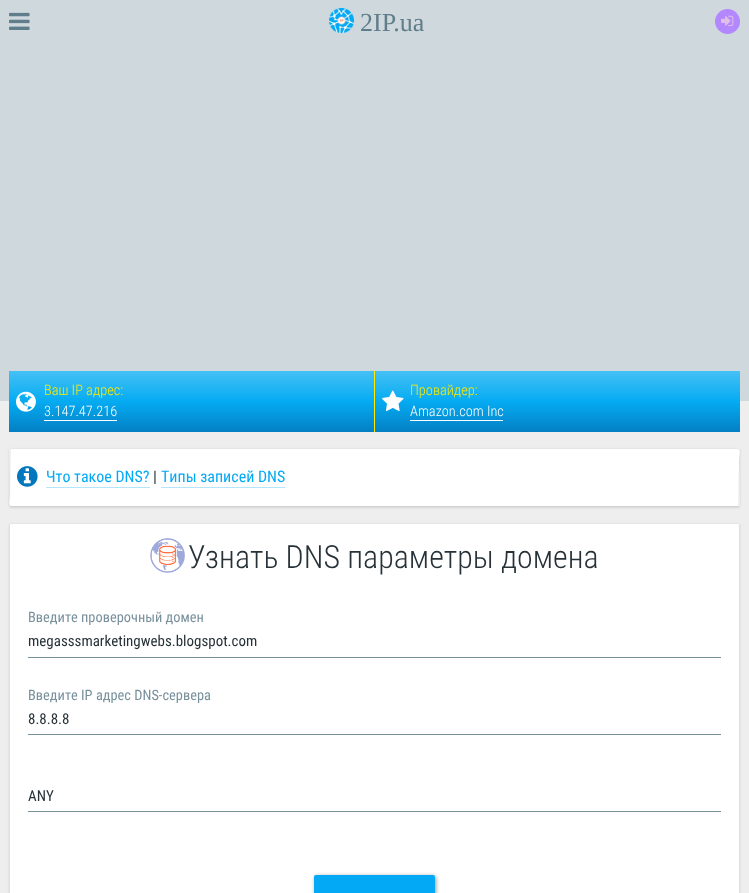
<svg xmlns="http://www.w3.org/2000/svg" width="749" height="893">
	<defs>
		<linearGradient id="g1" gradientUnits="userSpaceOnUse" x1="375" y1="432" x2="375" y2="371"><stop offset="0" stop-color="#047FC4" /><stop offset="0.5" stop-color="#05ABF2" /><stop offset="1" stop-color="#45C0F5" /></linearGradient>
	</defs>
	<rect width="100%" height="100%" fill="#EEEEEE" />
	<rect x="0" y="0" width="749" height="401" fill="#CFD8DC" />
	<image x="9" y="12" width="21" height="18" href="assets/img1.png" />
	<circle cx="727.5" cy="21.5" r="12.5" fill="#B388FF" />
	<image x="721" y="15" width="13" height="11" href="assets/img2.png" />
	<image x="329" y="8" width="25" height="25" href="assets/img3.png" />
	<text x="360" y="31" font-family="Liberation Serif" font-size="26" fill="#607D8B">2IP.ua</text>
	<rect x="9" y="371" width="731" height="61" fill="url(#g1)" />
	<rect x="374" y="371" width="1" height="61" fill="#FFEA00" />
	<image x="16" y="391" width="20" height="21" href="assets/img4.png" />
	<text x="44" y="395" font-family="Roboto Condensed" font-size="14.4" font-weight="300" fill="#FFEA00">Ваш IP адрес:</text>
	<text x="44" y="416" font-family="Roboto Condensed" font-size="14.4" font-weight="300" fill="#FFFFFF">3.147.47.216</text>
	<rect x="44" y="420" width="73" height="1" fill="#FFFFFF" />
	<image x="382" y="390" width="22" height="21" href="assets/img5.png" />
	<text x="410" y="395" font-family="Roboto Condensed" font-size="14.4" font-weight="300" fill="#FFEA00">Провайдер:</text>
	<text x="410" y="416" font-family="Roboto Condensed" font-size="14.4" font-weight="300" fill="#FFFFFF">Amazon.com Inc</text>
	<rect x="410" y="420" width="93" height="1" fill="#FFFFFF" />
	<rect x="9" y="449" width="731" height="59" rx="2" fill="#000000" fill-opacity="0.1" filter="blur(1px)" />
	<rect x="9" y="448" width="731" height="59" rx="2" fill="#FFFFFF" />
	<path d="M10 449L11 448.5H738L739 449" fill="none" stroke="#E5E6E9" />
	<path d="M739 449C741.5 451.5 739.5 455.5 739.5 459L739 506" fill="none" stroke="#DFE0E4" />
	<path d="M739 506L738 506.5H11L10 506" fill="none" stroke="#D0D1D5" />
	<path d="M10 506C7.5 503.5 9.5 499.5 9.5 496L10 449" fill="none" stroke="#DFE0E4" />
	<image x="17" y="466" width="21" height="21" href="assets/img6.png" />
	<text x="46" y="482" font-family="Roboto Condensed" font-size="16" fill="#03A9F4">Что такое DNS?</text>
	<rect x="46" y="487" width="104" height="1" fill="#B3E5FC" />
	<text x="153" y="482" font-family="Roboto Condensed" font-size="16" fill="#263238">|</text>
	<text x="161" y="482" font-family="Roboto Condensed" font-size="16" fill="#03A9F4">Типы записей DNS</text>
	<rect x="161" y="487" width="124" height="1" fill="#B3E5FC" />
	<rect x="9" y="524" width="731" height="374" rx="2" fill="#000000" fill-opacity="0.1" filter="blur(1px)" />
	<rect x="9" y="523" width="731" height="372" rx="2" fill="#FFFFFF" />
	<path d="M10 524L11 523.5H738L739 524" fill="none" stroke="#E5E6E9" />
	<path d="M739 524L739.5 525V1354L739 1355" fill="none" stroke="#DFE0E4" />
	<path d="M10 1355L9.5 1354V525L10 524" fill="none" stroke="#DFE0E4" />
	<image x="150" y="538" width="35" height="35" href="assets/img7.png" />
	<text x="188" y="568" font-family="Roboto Condensed" font-size="32" font-weight="300" fill="#263238">Узнать DNS параметры домена</text>
	<text x="28" y="622" font-family="Roboto Condensed" font-size="14.4" fill="#78909C">Введите проверочный домен</text>
	<rect x="28" y="657" width="693" height="1" fill="#78909C" />
	<text x="28" y="646" font-family="Roboto Condensed" font-size="15" fill="#263238">megasssmarketingwebs.blogspot.com</text>
	<text x="28" y="700" font-family="Roboto Condensed" font-size="14.4" fill="#78909C">Введите IP адрес DNS-сервера</text>
	<rect x="28" y="734" width="693" height="1" fill="#78909C" />
	<text x="28" y="724" font-family="Roboto Condensed" font-size="15" fill="#263238">8.8.8.8</text>
	<rect x="28" y="811" width="693" height="1" fill="#78909C" />
	<text x="28" y="801" font-family="Roboto Condensed" font-size="15" fill="#263238">ANY</text>
	<rect x="315" y="876" width="121" height="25" rx="2" fill="#000000" fill-opacity="0.4" filter="blur(2px)" />
	<rect x="314" y="875" width="121" height="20" rx="2" fill="#03A9F4" />
</svg>
